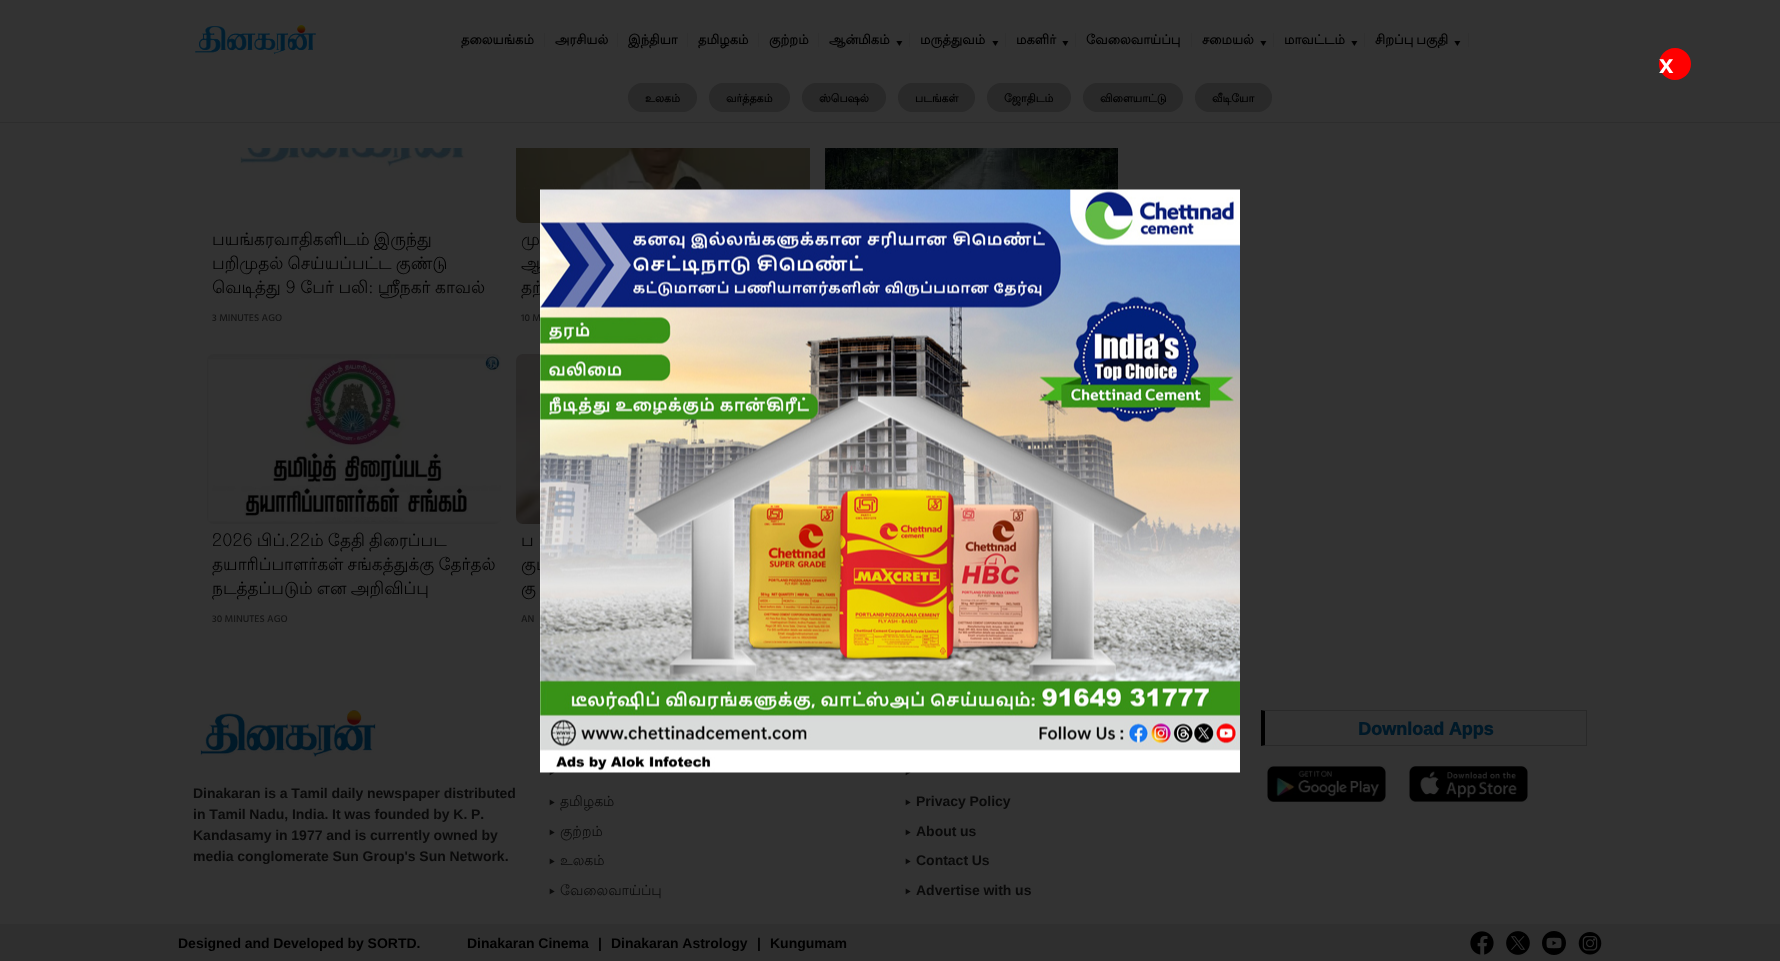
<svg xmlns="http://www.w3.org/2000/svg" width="1780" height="961">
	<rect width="100%" height="100%" fill="#333333" />
	<image x="195" y="25" width="121" height="30" href="assets/img1.png" />
	<text x="461" y="44" font-family="Lohit Tamil" font-size="13" font-weight="700" fill="#000000">தலையங்கம்</text>
	<rect x="544" y="33" width="1" height="14" fill="#303030" />
	<text x="555" y="44" font-family="Lohit Tamil" font-size="13" font-weight="700" fill="#000000">அரசியல்</text>
	<rect x="617" y="33" width="1" height="14" fill="#303030" />
	<text x="628" y="44" font-family="Lohit Tamil" font-size="13" font-weight="700" fill="#000000">இந்தியா</text>
	<rect x="687" y="33" width="1" height="14" fill="#303030" />
	<text x="698" y="44" font-family="Lohit Tamil" font-size="13" font-weight="700" fill="#000000">தமிழகம்</text>
	<rect x="758" y="33" width="1" height="14" fill="#303030" />
	<text x="769" y="44" font-family="Lohit Tamil" font-size="13" font-weight="700" fill="#000000">குற்றம்</text>
	<rect x="818" y="33" width="1" height="14" fill="#303030" />
	<text x="829" y="44" font-family="Lohit Tamil" font-size="13" font-weight="700" fill="#000000">ஆன்மிகம்</text>
	<text x="896" y="47" font-family="FreeSans" font-size="13" font-weight="700" fill="#000000">▾</text>
	<rect x="909" y="33" width="1" height="14" fill="#303030" />
	<text x="920" y="44" font-family="Lohit Tamil" font-size="13" font-weight="700" fill="#000000">மருத்துவம்</text>
	<text x="992" y="47" font-family="FreeSans" font-size="13" font-weight="700" fill="#000000">▾</text>
	<rect x="1005" y="33" width="1" height="14" fill="#303030" />
	<text x="1016" y="44" font-family="Lohit Tamil" font-size="13" font-weight="700" fill="#000000">மகளிர்</text>
	<text x="1062" y="47" font-family="FreeSans" font-size="13" font-weight="700" fill="#000000">▾</text>
	<rect x="1075" y="33" width="1" height="14" fill="#303030" />
	<text x="1086" y="44" font-family="Lohit Tamil" font-size="13" font-weight="700" fill="#000000">வேலைவாய்ப்பு</text>
	<rect x="1191" y="33" width="1" height="14" fill="#303030" />
	<text x="1202" y="44" font-family="Lohit Tamil" font-size="13" font-weight="700" fill="#000000">சமையல்</text>
	<text x="1260" y="47" font-family="FreeSans" font-size="13" font-weight="700" fill="#000000">▾</text>
	<rect x="1273" y="33" width="1" height="14" fill="#303030" />
	<text x="1284" y="44" font-family="Lohit Tamil" font-size="13" font-weight="700" fill="#000000">மாவட்டம்</text>
	<text x="1351" y="47" font-family="FreeSans" font-size="13" font-weight="700" fill="#000000">▾</text>
	<rect x="1364" y="33" width="1" height="14" fill="#303030" />
	<text x="1375" y="44" word-spacing="-1" font-family="Lohit Tamil" font-size="13" font-weight="700" fill="#000000">சிறப்பு பகுதி</text>
	<text x="1454" y="47" font-family="FreeSans" font-size="13" font-weight="700" fill="#000000">▾</text>
	<rect x="1468" y="33" width="1" height="14" fill="#303030" />
	<rect x="0" y="122" width="1780" height="1" fill="#2D2D2D" />
	<rect x="628" y="83" width="69" height="29" rx="14.5" fill="#292929" />
	<text x="645" y="102" font-family="Lohit Tamil" font-size="11" font-weight="700" fill="#000000">உலகம்</text>
	<rect x="709" y="83" width="81" height="29" rx="14.5" fill="#292929" />
	<text x="726" y="102" font-family="Lohit Tamil" font-size="11" font-weight="700" fill="#000000">வர்த்தகம்</text>
	<rect x="802" y="83" width="84" height="29" rx="14.5" fill="#292929" />
	<text x="819" y="102" font-family="Lohit Tamil" font-size="11" font-weight="700" fill="#000000">ஸ்பெஷல்</text>
	<rect x="898" y="83" width="77" height="29" rx="14.5" fill="#292929" />
	<text x="915" y="102" font-family="Lohit Tamil" font-size="11" font-weight="700" fill="#000000">படங்கள்</text>
	<rect x="987" y="83" width="84" height="29" rx="14.5" fill="#292929" />
	<text x="1004" y="102" font-family="Lohit Tamil" font-size="11" font-weight="700" fill="#000000">ஜோதிடம்</text>
	<rect x="1083" y="83" width="100" height="29" rx="14.5" fill="#292929" />
	<text x="1100" y="102" font-family="Lohit Tamil" font-size="11" font-weight="700" fill="#000000">விளையாட்டு</text>
	<rect x="1195" y="83" width="77" height="29" rx="14.5" fill="#292929" />
	<text x="1212" y="102" font-family="Lohit Tamil" font-size="11" font-weight="700" fill="#000000">வீடியோ</text>
	<image x="825" y="148" width="293" height="42" href="assets/img2.png" />
	<image x="239" y="148" width="231" height="19" href="assets/img3.png" />
	<g font-family="Lohit Tamil" font-size="17" fill="#000000">
		<text x="212" y="245" word-spacing="-1">பயங்கரவாதிகளிடம் இருந்து</text>
		<text x="212" y="269" word-spacing="-1">பறிமுதல் செய்யப்பட்ட குண்டு</text>
		<text x="212" y="293" word-spacing="-0.5">வெடித்து 9 பேர் பலி: ஸ்ரீநகர் காவல்</text>
	</g>
	<text x="212" y="321" font-family="Hind" font-size="10" font-weight="500" fill="#141414">3 MINUTES AGO</text>
	<image x="516" y="148" width="294" height="75" href="assets/img4.png" />
	<g font-family="Lohit Tamil" font-size="17" fill="#000000">
		<text x="521" y="245" word-spacing="-1">மு</text>
		<text x="521" y="269" word-spacing="-1">ஆ</text>
		<text x="521" y="293" word-spacing="-1">தற்</text>
	</g>
	<text x="521" y="321" font-family="Hind" font-size="10" font-weight="500" fill="#141414">10 M</text>
	<image x="207" y="354" width="294" height="170" href="assets/img5.png" />
	<g font-family="Lohit Tamil" font-size="17" fill="#000000">
		<text x="212" y="546" word-spacing="-1">2026 பிப்.22ம் தேதி திரைப்பட</text>
		<text x="212" y="570" word-spacing="-1">தயாரிப்பாளர்கள் சங்கத்துக்கு தேர்தல்</text>
		<text x="212" y="594" word-spacing="-1">நடத்தப்படும் என அறிவிப்பு</text>
	</g>
	<text x="212" y="622" font-family="Hind" font-size="10" font-weight="500" fill="#141414">30 MINUTES AGO</text>
	<image x="516" y="354" width="24" height="170" href="assets/img6.png" />
	<g font-family="Lohit Tamil" font-size="17" fill="#000000">
		<text x="521" y="546" word-spacing="-1">ப</text>
		<text x="521" y="570" word-spacing="-1">குட</text>
		<text x="521" y="594" word-spacing="-1">கு</text>
	</g>
	<text x="521" y="622" font-family="Hind" font-size="10" font-weight="500" fill="#141414">AN</text>
	<circle cx="1675" cy="64" r="16" fill="#FF0000" />
	<text x="1659" y="73" font-family="Ramabhadra" font-size="26" fill="#FFFFFF">x</text>
	<g font-family="FreeSans" font-size="14" fill="#0A0A0A">
		<text x="549" y="776">▸</text>
		<text x="905" y="776">▸</text>
	</g>
	<image x="540" y="189" width="700" height="584" href="assets/img7.png" />
	<path d="M1261 710H1587L1586 711H1265Z" fill="#292929" />
	<rect x="1586" y="710" width="1" height="36" fill="#292929" />
	<path d="M1587 746H1261L1265 745H1586Z" fill="#292929" />
	<path d="M1261 746V710L1265 711V745Z" fill="#000000" />
	<text x="1358" y="735" font-family="Ramabhadra" font-size="18" font-weight="700" fill="#001928">Download Apps</text>
	<image x="1267" y="766" width="119" height="36" href="assets/img8.png" />
	<image x="1409" y="766" width="119" height="36" href="assets/img9.png" />
	<image x="200" y="710" width="176" height="47" href="assets/img10.png" />
	<g font-family="Ramabhadra" font-size="14" fill="#0A0A0A">
		<text x="193" y="798">Dinakaran is a Tamil daily newspaper distributed</text>
		<text x="193" y="819">in Tamil Nadu, India. It was founded by K. P.</text>
		<text x="193" y="840">Kandasamy in 1977 and is currently owned by</text>
		<text x="193" y="861">media conglomerate Sun Group's Sun Network.</text>
	</g>
	<text x="549" y="806" font-family="FreeSans" font-size="14" fill="#0A0A0A">▸</text>
	<text x="560" y="806" font-family="Lohit Tamil" font-size="14" fill="#0A0A0A">தமிழகம்</text>
	<text x="549" y="836" font-family="FreeSans" font-size="14" fill="#0A0A0A">▸</text>
	<text x="560" y="836" font-family="Lohit Tamil" font-size="14" fill="#0A0A0A">குற்றம்</text>
	<text x="549" y="865" font-family="FreeSans" font-size="14" fill="#0A0A0A">▸</text>
	<text x="560" y="865" font-family="Lohit Tamil" font-size="14" fill="#0A0A0A">உலகம்</text>
	<text x="549" y="895" font-family="FreeSans" font-size="14" fill="#0A0A0A">▸</text>
	<text x="560" y="895" font-family="Lohit Tamil" font-size="14" fill="#0A0A0A">வேலைவாய்ப்பு</text>
	<text x="905" y="806" font-family="FreeSans" font-size="14" fill="#0A0A0A">▸</text>
	<text x="916" y="806" font-family="Ramabhadra" font-size="14" fill="#0A0A0A">Privacy Policy</text>
	<text x="905" y="836" font-family="FreeSans" font-size="14" fill="#0A0A0A">▸</text>
	<text x="916" y="836" font-family="Ramabhadra" font-size="14" fill="#0A0A0A">About us</text>
	<text x="905" y="865" font-family="FreeSans" font-size="14" fill="#0A0A0A">▸</text>
	<text x="916" y="865" font-family="Ramabhadra" font-size="14" fill="#0A0A0A">Contact Us</text>
	<text x="905" y="895" font-family="FreeSans" font-size="14" fill="#0A0A0A">▸</text>
	<text x="916" y="895" font-family="Ramabhadra" font-size="14" fill="#0A0A0A">Advertise with us</text>
	<rect x="0" y="924" width="1780" height="37" fill="#2F2F2F" />
	<g font-family="Ramabhadra" font-size="14" fill="#000000">
		<text x="178" y="948">Designed and Developed by SORTD.</text>
		<text x="467" y="948">Dinakaran Cinema</text>
		<text x="598" y="948">|</text>
		<text x="611" y="948">Dinakaran Astrology</text>
		<text x="757" y="948">|</text>
		<text x="770" y="948">Kungumam</text>
	</g>
	<image x="1470" y="931" width="24" height="24" href="assets/img11.png" />
	<image x="1506" y="931" width="24" height="24" href="assets/img12.png" />
	<image x="1542" y="931" width="24" height="24" href="assets/img13.png" />
	<image x="1578" y="932" width="24" height="23" href="assets/img14.png" />
</svg>
